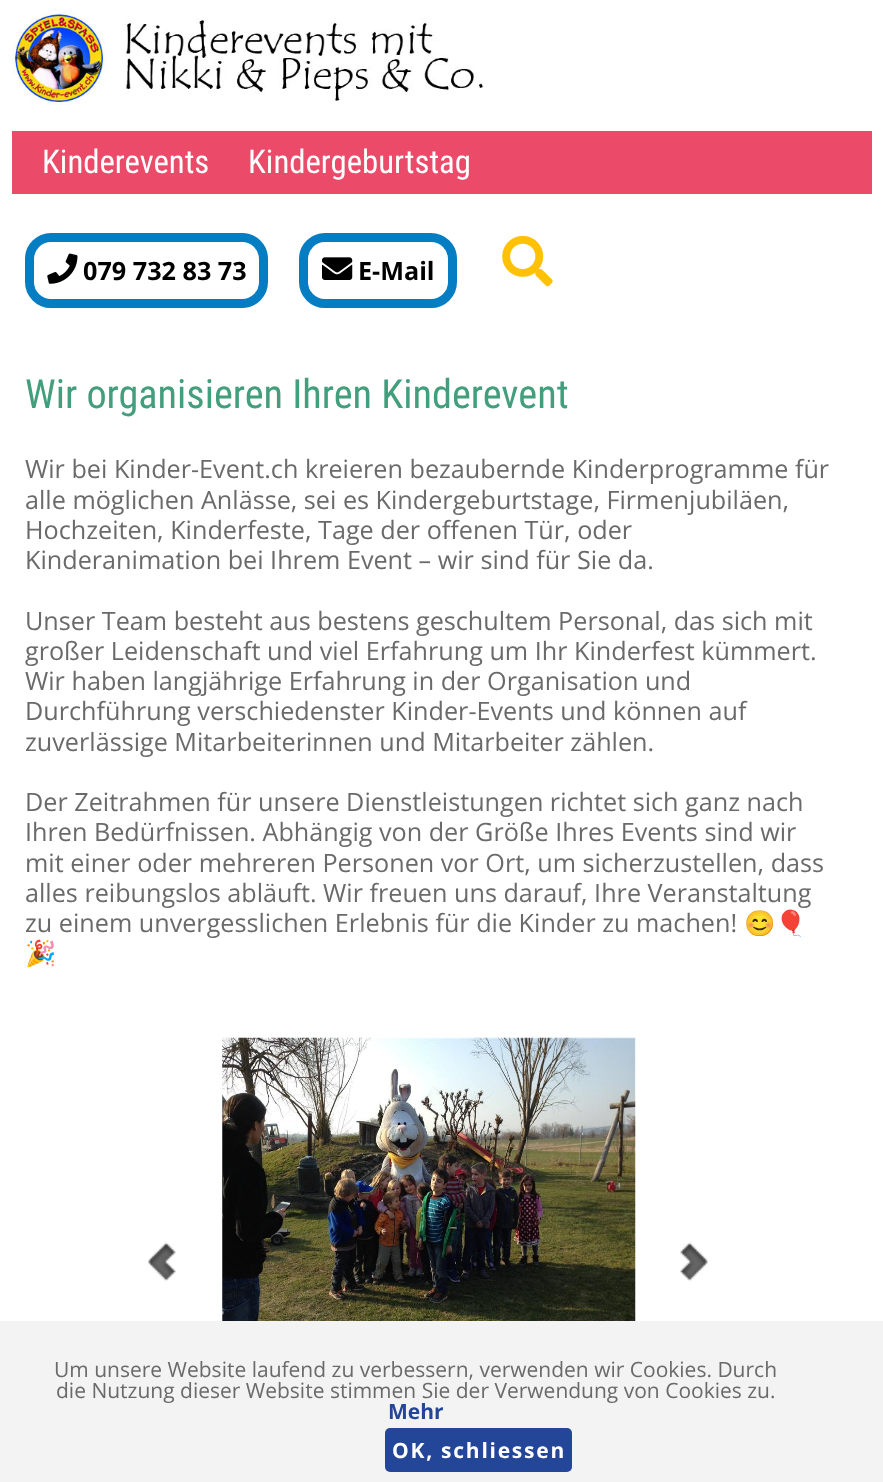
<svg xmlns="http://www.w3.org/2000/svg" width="883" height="1482">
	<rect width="100%" height="100%" fill="#FFFFFF" />
	<image x="12" y="12" width="472" height="93" href="assets/img1.png" />
	<rect x="12" y="131" width="860" height="63" fill="#EB4A69" />
	<g font-family="Roboto Condensed" font-size="32.75" fill="#FFFFFF">
		<text x="42" y="173">Kinderevents</text>
		<text x="248" y="173">Kindergeburtstag</text>
	</g>
	<rect x="29.5" y="237.5" width="234" height="66" rx="21.5" fill="none" stroke="#047DC2" stroke-width="9" />
	<image x="47" y="253" width="31" height="31" href="assets/img2.png" />
	<text x="83" y="280" font-family="Open Sans" font-size="25.2" font-weight="700" fill="#000000">079 732 83 73</text>
	<rect x="303.5" y="237.5" width="149" height="66" rx="21.5" fill="none" stroke="#047DC2" stroke-width="9" />
	<image x="322" y="257" width="31" height="23" href="assets/img3.png" />
	<text x="358" y="280" font-family="Open Sans" font-size="25.2" font-weight="700" fill="#000000">E-Mail</text>
	<image x="502" y="235" width="51" height="52" href="assets/img4.png" />
	<text x="25" y="408" font-family="Roboto Condensed" font-size="40.25" fill="#429E7C">Wir organisieren Ihren Kinderevent</text>
	<g font-family="Open Sans" font-size="25.2" fill="#6B6A6A">
		<text x="25" y="478">Wir bei Kinder-Event.ch kreieren bezaubernde Kinderprogramme für</text>
		<text x="25" y="509">alle möglichen Anlässe, sei es Kindergeburtstage, Firmenjubiläen,</text>
		<text x="25" y="539">Hochzeiten, Kinderfeste, Tage der offenen Tür, oder</text>
		<text x="25" y="569">Kinderanimation bei Ihrem Event – wir sind für Sie da.</text>
		<text x="25" y="630">Unser Team besteht aus bestens geschultem Personal, das sich mit</text>
		<text x="25" y="660">großer Leidenschaft und viel Erfahrung um Ihr Kinderfest kümmert.</text>
		<text x="25" y="690">Wir haben langjährige Erfahrung in der Organisation und</text>
		<text x="25" y="720">Durchführung verschiedenster Kinder-Events und können auf</text>
		<text x="25" y="751">zuverlässige Mitarbeiterinnen und Mitarbeiter zählen.</text>
		<text x="25" y="811">Der Zeitrahmen für unsere Dienstleistungen richtet sich ganz nach</text>
		<text x="25" y="841">Ihren Bedürfnissen. Abhängig von der Größe Ihres Events sind wir</text>
		<text x="25" y="872">mit einer oder mehreren Personen vor Ort, um sicherzustellen, dass</text>
		<text x="25" y="902">alles reibungslos abläuft. Wir freuen uns darauf, Ihre Veranstaltung</text>
		<text x="25" y="932">zu einem unvergesslichen Erlebnis für die Kinder zu machen!</text>
	</g>
	<g font-family="Noto Color Emoji" font-size="25.2" fill="#6B6A6A">
		<text x="744" y="932">😊🎈</text>
		<text x="25" y="962">🎉</text>
	</g>
	<image x="148" y="1242" width="28" height="40" href="assets/img5.png" />
	<image x="222" y="1037" width="414" height="284" href="assets/img6.png" />
	<image x="680" y="1242" width="28" height="40" href="assets/img7.png" />
	<rect x="0" y="1321" width="883" height="161" fill="#F3F3F3" />
	<g font-family="Open Sans" font-size="21" fill="#6B6A6A">
		<text x="54" y="1377">Um unsere Website laufend zu verbessern, verwenden wir Cookies. Durch</text>
		<text x="56" y="1398">die Nutzung dieser Website stimmen Sie der Verwendung von Cookies zu.</text>
	</g>
	<text x="388" y="1419" font-family="Open Sans" font-size="21" font-weight="700" fill="#244699">Mehr</text>
	<rect x="385" y="1428" width="187" height="44" rx="5" fill="#244699" />
	<text x="392" y="1458" font-family="Open Sans" font-size="21" font-weight="700" letter-spacing="1.75" fill="#FFFFFF">OK, schliessen</text>
</svg>
